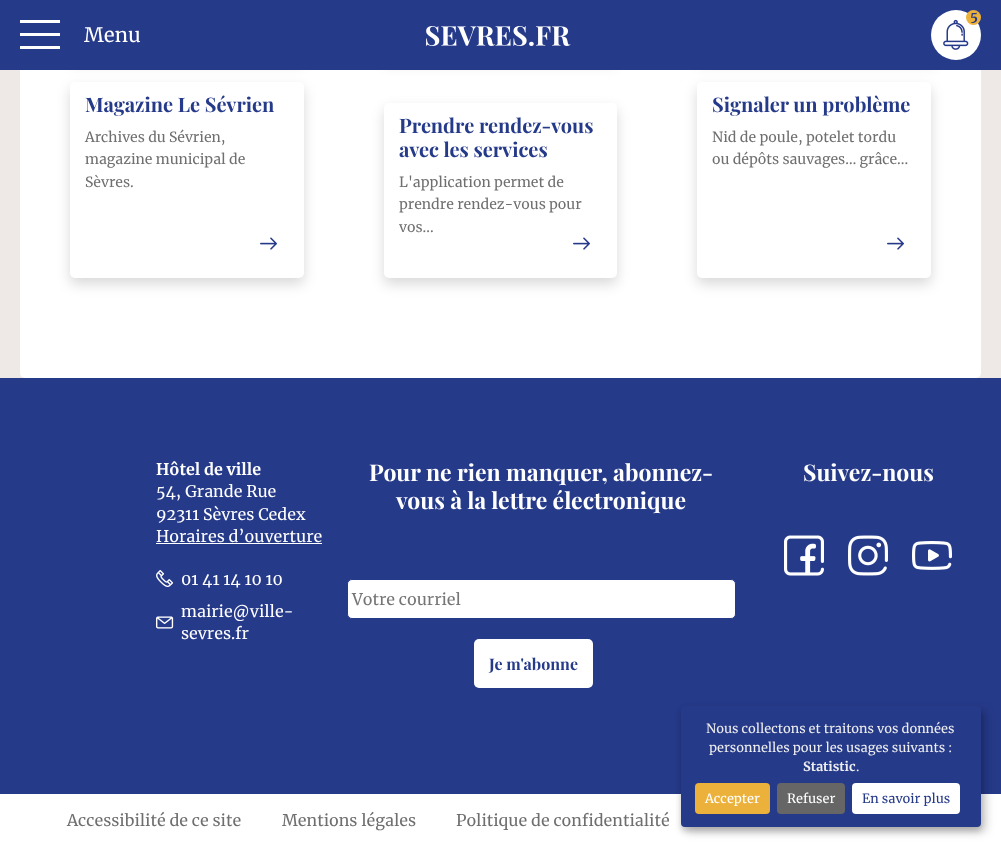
<svg xmlns="http://www.w3.org/2000/svg" width="1001" height="847">
	<rect width="100%" height="100%" fill="#FFFFFF" />
	<rect x="0" y="70" width="1001" height="308" fill="#EEE9E7" />
	<rect x="20" y="-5" width="961" height="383" rx="5" fill="#FFFFFF" />
	<rect x="70" y="-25" width="234" height="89" rx="5" fill="#000000" fill-opacity="0.15" filter="blur(6.5px)" />
	<rect x="384" y="-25" width="233" height="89" rx="5" fill="#000000" fill-opacity="0.15" filter="blur(6.5px)" />
	<rect x="697" y="-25" width="240" height="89" rx="5" fill="#000000" fill-opacity="0.15" filter="blur(6.5px)" />
	<rect x="70" y="88" width="234" height="196" rx="5" fill="#000000" fill-opacity="0.15" filter="blur(6.5px)" />
	<rect x="697" y="88" width="234" height="196" rx="5" fill="#000000" fill-opacity="0.15" filter="blur(6.5px)" />
	<rect x="0" y="0" width="1001" height="70" fill="#263A8A" />
	<circle cx="956" cy="35" r="25" fill="#FFFFFF" />
	<image x="943" y="19" width="26" height="31" href="assets/img1.png" />
	<circle cx="973.5" cy="17.5" r="7.5" fill="#ECB13B" />
	<text x="970" y="21" font-family="Merriweather" font-size="13" font-weight="700" fill="#263A8A">5</text>
	<rect x="20" y="20" width="40" height="3" fill="#FFFFFF" />
	<rect x="20" y="33" width="40" height="3" fill="#FFFFFF" />
	<rect x="20" y="46" width="40" height="3" fill="#FFFFFF" />
	<text x="84" y="42" font-family="Merriweather" font-size="20" fill="#FFFFFF">Menu</text>
	<image x="426" y="26" width="145" height="20" href="assets/img2.png" />
	<rect x="70" y="82" width="234" height="196" rx="5" fill="#FFFFFF" />
	<text x="85" y="112" font-family="Playfair Display" font-size="20" font-weight="700" fill="#263A8A">Magazine Le Sévrien</text>
	<g font-family="Merriweather" font-size="14" fill="#6F6F6F">
		<text x="85" y="142">Archives du Sévrien,</text>
		<text x="85" y="164">magazine municipal de</text>
		<text x="85" y="187">Sèvres.</text>
	</g>
	<image x="260" y="237" width="17" height="13" href="assets/img3.png" />
	<rect x="384" y="109" width="233" height="175" rx="5" fill="#000000" fill-opacity="0.15" filter="blur(6.5px)" />
	<rect x="384" y="103" width="233" height="175" rx="5" fill="#FFFFFF" />
	<g font-family="Playfair Display" font-size="20" font-weight="700" fill="#263A8A">
		<text x="399" y="133">Prendre rendez-vous</text>
		<text x="399" y="157">avec les services</text>
	</g>
	<g font-family="Merriweather" font-size="14" fill="#6F6F6F">
		<text x="399" y="187">L'application permet de</text>
		<text x="399" y="209">prendre rendez-vous pour</text>
		<text x="399" y="232">vos...</text>
	</g>
	<image x="573" y="237" width="17" height="13" href="assets/img3.png" />
	<rect x="697" y="82" width="234" height="196" rx="5" fill="#FFFFFF" />
	<text x="712" y="112" font-family="Playfair Display" font-size="20" font-weight="700" fill="#263A8A">Signaler un problème</text>
	<g font-family="Merriweather" font-size="14" fill="#6F6F6F">
		<text x="712" y="142">Nid de poule, potelet tordu</text>
		<text x="712" y="164">ou dépôts sauvages… grâce...</text>
	</g>
	<image x="887" y="237" width="17" height="13" href="assets/img3.png" />
	<rect x="0" y="378" width="1001" height="416" fill="#263A8A" />
	<text x="156" y="475" font-family="Merriweather" font-size="16" font-weight="700" fill="#FFFFFF">Hôtel de ville</text>
	<g font-family="Merriweather" font-size="16" fill="#FFFFFF">
		<text x="156" y="497">54, Grande Rue</text>
		<text x="156" y="520">92311 Sèvres Cedex</text>
		<text x="156" y="542">Horaires d’ouverture</text>
	</g>
	<rect x="156" y="543" width="166" height="1" fill="#FFFFFF" />
	<image x="156" y="570" width="18" height="17" href="assets/img4.png" />
	<text x="181" y="585" font-family="Merriweather" font-size="16" fill="#FFFFFF">01 41 14 10 10</text>
	<image x="156" y="616" width="18" height="13" href="assets/img5.png" />
	<g font-family="Merriweather" font-size="16" fill="#FFFFFF">
		<text x="181" y="617">mairie@ville-</text>
		<text x="181" y="639">sevres.fr</text>
	</g>
	<g font-family="Playfair Display" font-size="23" font-weight="700" fill="#FFFFFF">
		<text x="369" y="481">Pour ne rien manquer, abonnez-</text>
		<text x="396" y="509">vous à la lettre électronique</text>
	</g>
	<rect x="347.5" y="579.5" width="388" height="39" rx="4.5" fill="#FFFFFF" stroke="#263A8A" />
	<text x="352" y="605" font-family="Merriweather" font-size="16" fill="#757575">Votre courriel</text>
	<rect x="474" y="639" width="119" height="49" rx="5" fill="#FFFFFF" />
	<text x="489" y="670" font-family="Playfair Display" font-size="16" font-weight="700" fill="#263A8A">Je m'abonne</text>
	<text x="803" y="481" font-family="Playfair Display" font-size="23" font-weight="700" fill="#FFFFFF">Suivez-nous</text>
	<image x="784" y="535" width="40" height="41" href="assets/img6.png" />
	<image x="848" y="535" width="40" height="41" href="assets/img7.png" />
	<image x="912" y="541" width="40" height="29" href="assets/img8.png" />
	<g font-family="Merriweather" font-size="16" fill="#6F6F6F">
		<text x="67" y="826">Accessibilité de ce site</text>
		<text x="282" y="826">Mentions légales</text>
		<text x="456" y="826">Politique de confidentialité</text>
	</g>
	<rect x="686" y="711" width="300" height="121" rx="4" fill="#000000" fill-opacity="0.19" filter="blur(5px)" />
	<rect x="681" y="710" width="300" height="121" rx="4" fill="#000000" fill-opacity="0.2" filter="blur(3px)" />
	<rect x="681" y="706" width="300" height="121" rx="4" fill="#263A8A" />
	<g font-family="Merriweather" font-size="12.75" fill="#EEEEEE">
		<text x="706" y="733">Nous collectons et traitons vos données</text>
		<text x="709" y="752">personnelles pour les usages suivants :</text>
	</g>
	<text x="803" y="771" font-family="Merriweather" font-size="12.75" font-weight="700" fill="#EEEEEE">Statistic</text>
	<text x="856" y="771" font-family="Merriweather" font-size="12.75" fill="#EEEEEE">.</text>
	<rect x="695" y="783" width="75" height="31" rx="4" fill="#ECB13B" />
	<text x="705" y="803" font-family="Merriweather" font-size="12.75" fill="#FFFFFF">Accepter</text>
	<rect x="777" y="783" width="68" height="31" rx="4" fill="#666666" />
	<text x="787" y="803" font-family="Merriweather" font-size="12.75" fill="#FFFFFF">Refuser</text>
	<rect x="852" y="783" width="108" height="31" rx="4" fill="#FFFFFF" />
	<text x="862" y="803" font-family="Merriweather" font-size="12.75" fill="#263A8A">En savoir plus</text>
</svg>
